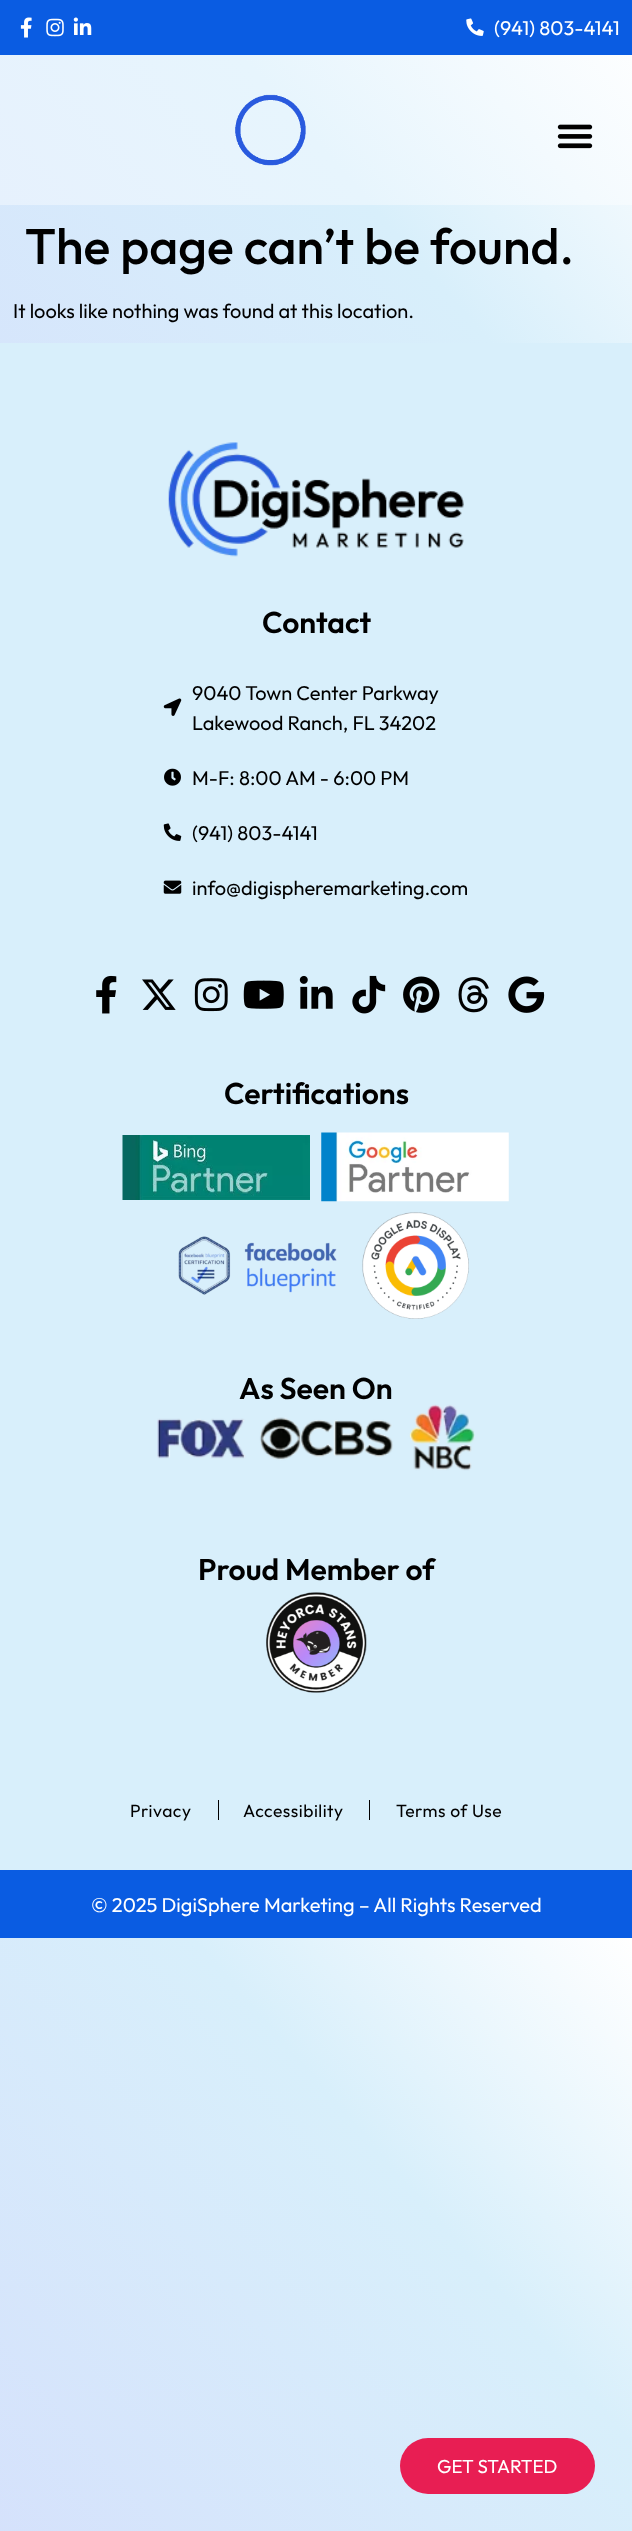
<svg xmlns="http://www.w3.org/2000/svg" width="632" height="2531">
	<defs>
		<linearGradient id="g1" gradientUnits="userSpaceOnUse" x1="-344" y1="1542" x2="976" y2="395"><stop offset="0" stop-color="#D8EFFB" /><stop offset="0.37" stop-color="#D4DCFC" /><stop offset="0.81" stop-color="#D8EFFB" /><stop offset="1" stop-color="#FFFFFF" /></linearGradient>
		<linearGradient id="g2" gradientUnits="userSpaceOnUse" x1="-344" y1="1542" x2="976" y2="395"><stop offset="0" stop-color="#E7F5FD" /><stop offset="0.37" stop-color="#E5EAFD" /><stop offset="0.81" stop-color="#E7F5FD" /><stop offset="1" stop-color="#FFFFFF" /></linearGradient>
		<linearGradient id="g3" gradientUnits="userSpaceOnUse" x1="-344" y1="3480" x2="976" y2="2333"><stop offset="0" stop-color="#D8EFFB" /><stop offset="0.37" stop-color="#D4DCFC" /><stop offset="0.81" stop-color="#D8EFFB" /><stop offset="1" stop-color="#FFFFFF" /></linearGradient>
	</defs>
	<rect width="100%" height="100%" fill="#FFFFFF" />
	<rect x="0" y="205" width="632" height="138" fill="url(#g1)" />
	<rect x="0" y="55" width="632" height="150" fill="url(#g2)" />
	<rect x="0" y="1938" width="632" height="593" fill="url(#g3)" />
	<rect x="0" y="0" width="632" height="55" fill="#0A5CE2" />
	<image x="20" y="17" width="12" height="21" href="assets/img1.png" />
	<image x="46" y="18" width="18" height="19" href="assets/img2.png" />
	<image x="73" y="17" width="19" height="18" href="assets/img3.png" />
	<image x="466" y="18" width="18" height="18" href="assets/img4.png" />
	<text x="494" y="35" font-family="Outfit" font-size="20" fill="#FFFFFF">(941) 803-4141</text>
	<image x="235" y="94" width="71" height="72" href="assets/img5.png" />
	<image x="557" y="124" width="36" height="25" href="assets/img6.png" />
	<rect x="400" y="2438" width="195" height="56" rx="28" fill="#E81E53" />
	<text x="437" y="2473" font-family="Outfit" font-size="18.75" fill="#FFFFFF">GET STARTED</text>
	<text x="25" y="264" font-family="Outfit" font-size="50" font-weight="500" fill="#000000">The page can’t be found.</text>
	<text x="13" y="318" font-family="Outfit" font-size="20" fill="#000000">It looks like nothing was found at this location.</text>
	<rect x="0" y="343" width="632" height="1527" fill="#D8EFFB" />
	<image x="168" y="442" width="296" height="115" href="assets/img7.png" />
	<text x="262" y="633" font-family="Outfit" font-size="30" font-weight="600" fill="#000000">Contact</text>
	<image x="163" y="698" width="19" height="18" href="assets/img8.png" />
	<g font-family="Outfit" font-size="20" fill="#000000">
		<text x="192" y="700">9040 Town Center Parkway</text>
		<text x="192" y="730">Lakewood Ranch, FL 34202</text>
	</g>
	<image x="164" y="768" width="17" height="18" href="assets/img9.png" />
	<text x="192" y="785" font-family="Outfit" font-size="20" fill="#000000">M-F: 8:00 AM - 6:00 PM</text>
	<image x="163" y="823" width="19" height="18" href="assets/img10.png" />
	<text x="192" y="840" font-family="Outfit" font-size="20" fill="#000000">(941) 803-4141</text>
	<image x="163" y="880" width="19" height="14" href="assets/img11.png" />
	<text x="192" y="895" font-family="Outfit" font-size="20" fill="#000000">info@digispheremarketing.com</text>
	<image x="96" y="975" width="21" height="39" href="assets/img12.png" />
	<image x="142" y="979" width="34" height="31" href="assets/img13.png" />
	<image x="194" y="978" width="34" height="34" href="assets/img14.png" />
	<image x="243" y="980" width="41" height="29" href="assets/img15.png" />
	<image x="299" y="975" width="34" height="34" href="assets/img16.png" />
	<image x="352" y="975" width="34" height="39" href="assets/img17.png" />
	<image x="403" y="976" width="37" height="37" href="assets/img18.png" />
	<image x="458" y="977" width="31" height="36" href="assets/img19.png" />
	<image x="508" y="976" width="37" height="37" href="assets/img20.png" />
	<text x="224" y="1104" font-family="Outfit" font-size="30" font-weight="600" fill="#000000">Certifications</text>
	<image x="122" y="1135" width="188" height="65" href="assets/img21.png" />
	<image x="321" y="1132" width="188" height="70" href="assets/img22.png" />
	<image x="178" y="1236" width="159" height="59" href="assets/img23.png" />
	<image x="362" y="1212" width="107" height="107" href="assets/img24.png" />
	<text x="239" y="1399" font-family="Outfit" font-size="30" font-weight="600" fill="#000000">As Seen On</text>
	<image x="157" y="1404" width="318" height="67" href="assets/img25.png" />
	<text x="198" y="1580" font-family="Outfit" font-size="30" font-weight="600" fill="#000000">Proud Member of</text>
	<image x="266" y="1592" width="101" height="101" href="assets/img26.png" />
	<text x="130" y="1817" font-family="Outfit" font-size="17.5" letter-spacing="0.5" fill="#000000">Privacy</text>
	<rect x="218" y="1800" width="1" height="20" fill="#000000" />
	<text x="243" y="1817" font-family="Outfit" font-size="17.5" letter-spacing="0.5" fill="#000000">Accessibility</text>
	<rect x="369" y="1800" width="1" height="20" fill="#000000" />
	<text x="396" y="1817" font-family="Outfit" font-size="17.5" letter-spacing="0.5" fill="#000000">Terms of Use</text>
	<rect x="0" y="1870" width="632" height="68" fill="#0A5CE2" />
	<text x="91" y="1912" font-family="Outfit" font-size="20" fill="#FFFFFF">© 2025 DigiSphere Marketing – All Rights Reserved</text>
</svg>
